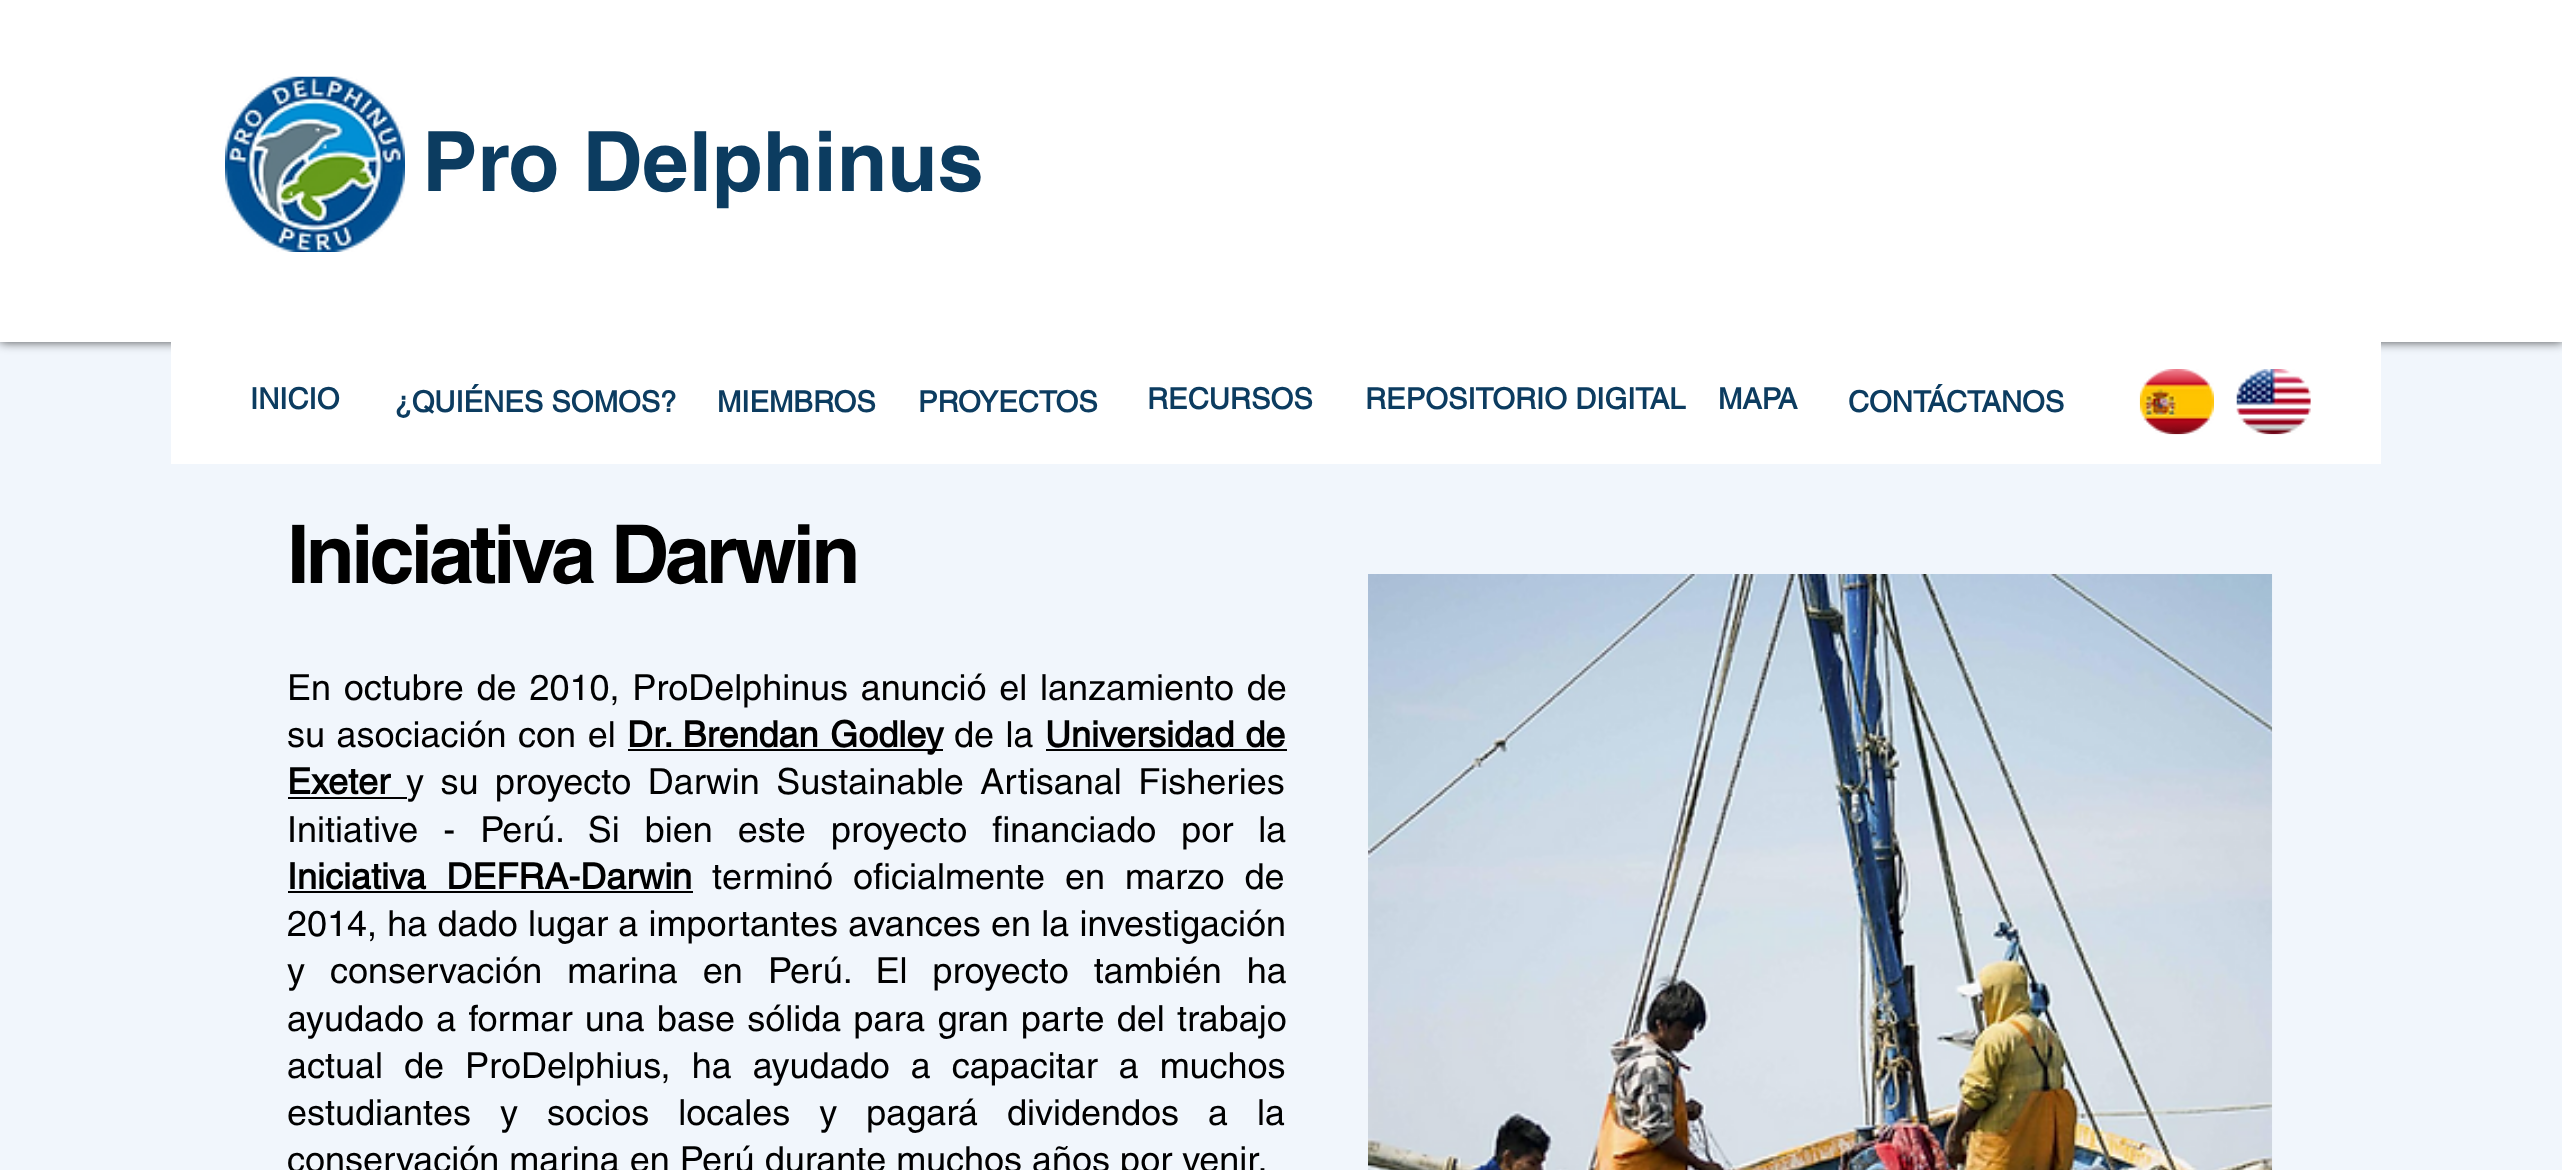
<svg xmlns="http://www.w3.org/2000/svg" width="2562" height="1170">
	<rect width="100%" height="100%" fill="#F1F6FC" />
	<rect x="0" y="0" width="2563" height="342" fill="#000000" fill-opacity="0.7" filter="blur(5.5px)" />
	<rect x="0" y="0" width="2562" height="342" fill="#FFFFFF" />
	<image x="225" y="76" width="180" height="176" href="assets/img1.png" />
	<text x="422" y="191" font-family="helvetica" font-size="83.25" font-weight="700" fill="#0C3C60">Pro Delphinus</text>
	<rect x="171" y="342" width="2210" height="122" fill="#FFFFFF" />
	<g font-family="'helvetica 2'" font-size="29.25" font-weight="700" fill="#0C3C60">
		<text x="250" y="409">INICIO</text>
		<text x="394" y="412">¿QUIÉNES SOMOS?</text>
		<text x="717" y="412">MIEMBROS</text>
		<text x="918" y="412">PROYECTOS</text>
		<text x="1147" y="409">RECURSOS</text>
		<text x="1365" y="409">REPOSITORIO DIGITAL</text>
		<text x="1718" y="409">MAPA</text>
		<text x="1848" y="412">CONTÁCTANOS</text>
	</g>
	<image x="2139" y="369" width="75" height="66" href="assets/img2.png" />
	<image x="2236" y="369" width="75" height="66" href="assets/img3.png" />
	<text x="287" y="583" font-family="helvetica" font-size="81" font-weight="700" letter-spacing="-4" fill="#000000">Iniciativa Darwin</text>
	<g font-family="helvetica" font-size="36" fill="#000000">
		<text x="287" y="700" word-spacing="2.75">En octubre de 2010, ProDelphinus anunció el lanzamiento de</text>
		<text x="287" y="747" word-spacing="1.5">su asociación con el</text>
	</g>
	<rect x="628" y="749" width="315" height="2" fill="#000000" />
	<text x="627" y="747" word-spacing="1.5" font-family="'helvetica 2'" font-size="36" font-weight="700" fill="#000000">Dr. Brendan Godley</text>
	<text x="954" y="747" word-spacing="1.5" font-family="helvetica" font-size="36" fill="#000000">de la</text>
	<text x="1045" y="747" font-family="'helvetica 2'" font-size="36" font-weight="700" fill="#000000">U</text>
	<rect x="1046" y="749" width="241" height="2" fill="#000000" />
	<g font-family="'helvetica 2'" font-size="36" font-weight="700" fill="#000000">
		<text x="1071" y="747" word-spacing="1">niversidad de</text>
		<text x="287" y="794">Exeter</text>
	</g>
	<rect x="288" y="797" width="119" height="2" fill="#000000" />
	<g font-family="helvetica" font-size="36" fill="#000000">
		<text x="406" y="794" word-spacing="6.5">y su proyecto Darwin Sustainable Artisanal Fisheries</text>
		<text x="287" y="842" word-spacing="15">Initiative - Perú. Si bien este proyecto financiado por la</text>
	</g>
	<text x="287" y="889" word-spacing="10" font-family="'helvetica 2'" font-size="36" font-weight="700" fill="#000000">Iniciativa DEFRA-Darwin</text>
	<rect x="288" y="891" width="405" height="2" fill="#000000" />
	<g font-family="helvetica" font-size="36" fill="#000000">
		<text x="712" y="889" word-spacing="10">terminó oficialmente en marzo de</text>
		<text x="287" y="936" word-spacing="0.25">2014, ha dado lugar a importantes avances en la investigación</text>
		<text x="287" y="983" word-spacing="15">y conservación marina en Perú. El proyecto también ha</text>
		<text x="287" y="1031" word-spacing="2.25">ayudado a formar una base sólida para gran parte del trabajo</text>
		<text x="287" y="1078" word-spacing="11">actual de ProDelphius, ha ayudado a capacitar a muchos</text>
		<text x="287" y="1125" word-spacing="19">estudiantes y socios locales y pagará dividendos a la</text>
		<text x="287" y="1172">conservación marina en Perú durante muchos años por venir.</text>
	</g>
	<image x="1368" y="574" width="905" height="596" href="assets/img4.png" />
</svg>
